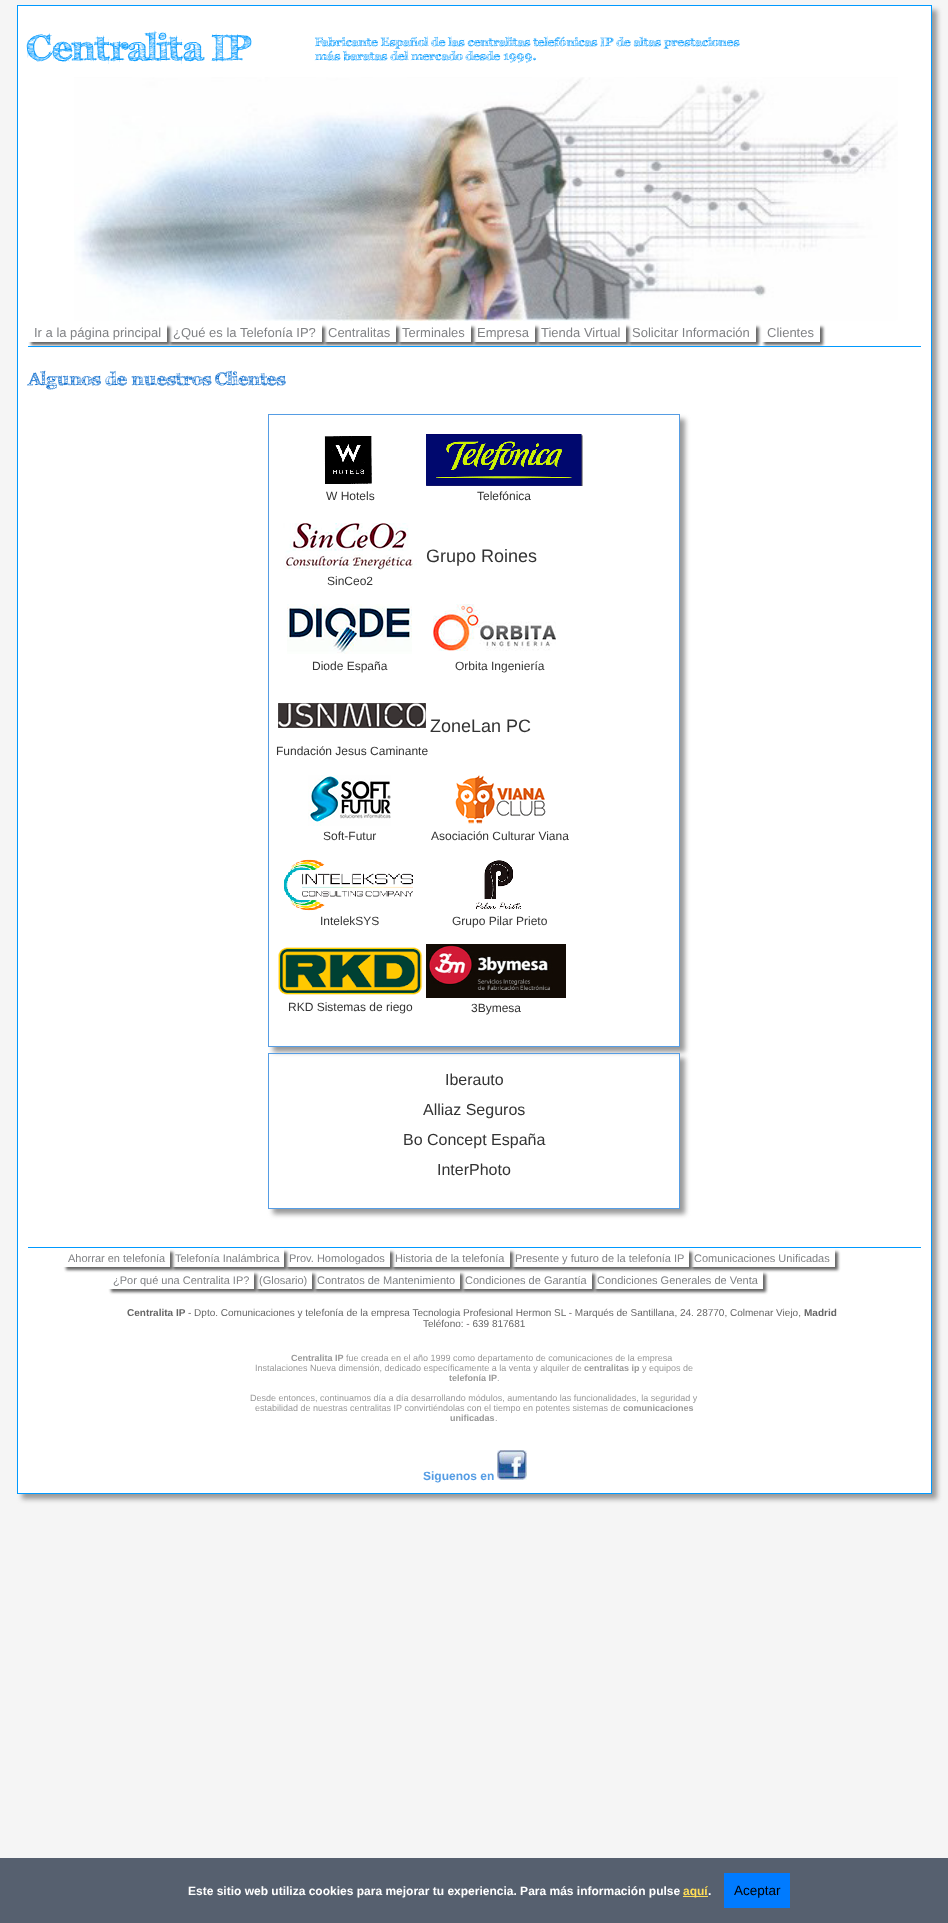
<svg xmlns="http://www.w3.org/2000/svg" width="948" height="1923">
	<defs>
		<clipPath id="clip1"><path d="M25 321H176V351H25ZM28 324H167V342H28Z" clip-rule="evenodd" /></clipPath>
		<clipPath id="clip2"><path d="M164 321H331V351H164ZM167 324H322V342H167Z" clip-rule="evenodd" /></clipPath>
		<clipPath id="clip3"><path d="M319 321H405V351H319ZM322 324H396V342H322Z" clip-rule="evenodd" /></clipPath>
		<clipPath id="clip4"><path d="M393 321H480V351H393ZM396 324H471V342H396Z" clip-rule="evenodd" /></clipPath>
		<clipPath id="clip5"><path d="M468 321H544V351H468ZM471 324H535V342H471Z" clip-rule="evenodd" /></clipPath>
		<clipPath id="clip6"><path d="M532 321H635V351H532ZM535 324H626V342H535Z" clip-rule="evenodd" /></clipPath>
		<clipPath id="clip7"><path d="M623 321H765V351H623ZM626 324H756V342H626Z" clip-rule="evenodd" /></clipPath>
		<clipPath id="clip8"><path d="M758 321H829V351H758ZM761 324H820V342H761Z" clip-rule="evenodd" /></clipPath>
		<clipPath id="clip9"><path d="M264 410H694V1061H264ZM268 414H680V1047H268Z" clip-rule="evenodd" /></clipPath>
		<clipPath id="clip10"><path d="M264 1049H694V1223H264ZM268 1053H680V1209H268Z" clip-rule="evenodd" /></clipPath>
		<clipPath id="clip11"><path d="M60 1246H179V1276H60ZM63 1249H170V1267H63Z" clip-rule="evenodd" /></clipPath>
		<clipPath id="clip12"><path d="M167 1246H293V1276H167ZM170 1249H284V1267H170Z" clip-rule="evenodd" /></clipPath>
		<clipPath id="clip13"><path d="M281 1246H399V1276H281ZM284 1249H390V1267H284Z" clip-rule="evenodd" /></clipPath>
		<clipPath id="clip14"><path d="M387 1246H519V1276H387ZM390 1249H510V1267H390Z" clip-rule="evenodd" /></clipPath>
		<clipPath id="clip15"><path d="M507 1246H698V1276H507ZM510 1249H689V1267H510Z" clip-rule="evenodd" /></clipPath>
		<clipPath id="clip16"><path d="M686 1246H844V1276H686ZM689 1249H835V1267H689Z" clip-rule="evenodd" /></clipPath>
		<clipPath id="clip17"><path d="M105 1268H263V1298H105ZM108 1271H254V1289H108Z" clip-rule="evenodd" /></clipPath>
		<clipPath id="clip18"><path d="M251 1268H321V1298H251ZM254 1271H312V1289H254Z" clip-rule="evenodd" /></clipPath>
		<clipPath id="clip19"><path d="M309 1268H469V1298H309ZM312 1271H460V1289H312Z" clip-rule="evenodd" /></clipPath>
		<clipPath id="clip20"><path d="M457 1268H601V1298H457ZM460 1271H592V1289H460Z" clip-rule="evenodd" /></clipPath>
		<clipPath id="clip21"><path d="M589 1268H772V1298H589ZM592 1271H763V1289H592Z" clip-rule="evenodd" /></clipPath>
	</defs>
	<rect width="100%" height="100%" fill="#F5F5F5" />
	<rect x="22" y="10" width="915" height="1489" fill="#999999" filter="blur(2.5px)" />
	<rect x="17.5" y="5.5" width="914" height="1488" fill="#FFFFFF" stroke="#0099FF" />
	<text x="28" y="60" font-family="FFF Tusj" font-size="36" font-weight="700" fill="#0099FF">Centralita IP</text>
	<g font-family="FFF Tusj" font-size="12" font-weight="700" fill="#0099FF">
		<text x="315" y="46">Fabricante Español de las centralitas telefónicas IP de altas prestaciones</text>
		<text x="315" y="60">más baratas del mercado desde 1999.</text>
	</g>
	<image x="74" y="77" width="824" height="244" href="assets/img1.png" />
	<g clip-path="url(#clip1)">
		<rect x="31" y="327" width="139" height="18" fill="#666666" filter="blur(1.5px)" />
	</g>
	<text x="34" y="337" font-family="Liberation Sans" font-size="13" fill="#808285">Ir a la página principal</text>
	<g clip-path="url(#clip2)">
		<rect x="170" y="327" width="155" height="18" fill="#666666" filter="blur(1.5px)" />
	</g>
	<text x="173" y="337" font-family="Liberation Sans" font-size="13" fill="#808285">¿Qué es la Telefonía IP?</text>
	<g clip-path="url(#clip3)">
		<rect x="325" y="327" width="74" height="18" fill="#666666" filter="blur(1.5px)" />
	</g>
	<text x="328" y="337" font-family="Liberation Sans" font-size="13" fill="#808285">Centralitas</text>
	<g clip-path="url(#clip4)">
		<rect x="399" y="327" width="75" height="18" fill="#666666" filter="blur(1.5px)" />
	</g>
	<text x="402" y="337" font-family="Liberation Sans" font-size="13" fill="#808285">Terminales</text>
	<g clip-path="url(#clip5)">
		<rect x="474" y="327" width="64" height="18" fill="#666666" filter="blur(1.5px)" />
	</g>
	<text x="477" y="337" font-family="Liberation Sans" font-size="13" fill="#808285">Empresa</text>
	<g clip-path="url(#clip6)">
		<rect x="538" y="327" width="91" height="18" fill="#666666" filter="blur(1.5px)" />
	</g>
	<text x="541" y="337" font-family="Liberation Sans" font-size="13" fill="#808285">Tienda Virtual</text>
	<g clip-path="url(#clip7)">
		<rect x="629" y="327" width="130" height="18" fill="#666666" filter="blur(1.5px)" />
	</g>
	<text x="632" y="337" font-family="Liberation Sans" font-size="13" fill="#808285">Solicitar Información</text>
	<g clip-path="url(#clip8)">
		<rect x="764" y="327" width="59" height="18" fill="#666666" filter="blur(1.5px)" />
	</g>
	<text x="767" y="337" font-family="Liberation Sans" font-size="13" fill="#808285">Clientes</text>
	<rect x="28" y="346" width="893" height="1" fill="#0099FF" />
	<text x="28" y="385" font-family="FFF Tusj" font-size="18" font-weight="700" fill="#0066CC">Algunos de nuestros Clientes</text>
	<g clip-path="url(#clip9)">
		<rect x="273" y="419" width="412" height="633" fill="#999999" filter="blur(2.5px)" />
	</g>
	<rect x="268.5" y="414.5" width="411" height="632" fill="none" stroke="#569DE4" />
	<image x="324" y="436" width="48" height="48" href="assets/img2.png" />
	<text x="326" y="500" font-family="Liberation Sans" font-size="12" fill="#333333">W Hotels</text>
	<image x="426" y="434" width="157" height="52" href="assets/img3.png" />
	<text x="477" y="500" font-family="Liberation Sans" font-size="12" fill="#333333">Telefónica</text>
	<text x="426" y="562" font-family="Liberation Sans" font-size="18" fill="#333333">Grupo Roines</text>
	<image x="283" y="523" width="134" height="47" href="assets/img4.png" />
	<text x="327" y="585" font-family="Liberation Sans" font-size="12" fill="#333333">SinCeo2</text>
	<image x="287" y="604" width="125" height="50" href="assets/img5.png" />
	<text x="312" y="670" font-family="Liberation Sans" font-size="12" fill="#333333">Diode España</text>
	<image x="433" y="604" width="123" height="47" href="assets/img6.png" />
	<text x="455" y="670" font-family="Liberation Sans" font-size="12" fill="#333333">Orbita Ingeniería</text>
	<text x="430" y="732" font-family="Liberation Sans" font-size="18" fill="#333333">ZoneLan PC</text>
	<image x="278" y="703" width="148" height="25" href="assets/img7.png" />
	<text x="276" y="755" font-family="Liberation Sans" font-size="12" fill="#333333">Fundación Jesus Caminante</text>
	<image x="308" y="775" width="83" height="51" href="assets/img8.png" />
	<text x="323" y="840" font-family="Liberation Sans" font-size="12" fill="#333333">Soft-Futur</text>
	<image x="455" y="775" width="91" height="49" href="assets/img9.png" />
	<text x="431" y="840" font-family="Liberation Sans" font-size="12" fill="#333333">Asociación Culturar Viana</text>
	<image x="283" y="859" width="130" height="52" href="assets/img10.png" />
	<text x="320" y="925" font-family="Liberation Sans" font-size="12" fill="#333333">IntelekSYS</text>
	<image x="476" y="860" width="45" height="49" href="assets/img11.png" />
	<text x="452" y="925" font-family="Liberation Sans" font-size="12" fill="#333333">Grupo Pilar Prieto</text>
	<image x="278" y="947" width="145" height="48" href="assets/img12.png" />
	<text x="288" y="1011" font-family="Liberation Sans" font-size="12" fill="#333333">RKD Sistemas de riego</text>
	<image x="426" y="944" width="140" height="54" href="assets/img13.png" />
	<text x="471" y="1012" font-family="Liberation Sans" font-size="12" fill="#333333">3Bymesa</text>
	<g clip-path="url(#clip10)">
		<rect x="273" y="1058" width="412" height="156" fill="#999999" filter="blur(2.5px)" />
	</g>
	<rect x="268.5" y="1053.5" width="411" height="155" fill="none" stroke="#569DE4" />
	<g font-family="Liberation Sans" font-size="16" fill="#333333">
		<text x="445" y="1085">Iberauto</text>
		<text x="423" y="1115">Alliaz Seguros</text>
		<text x="403" y="1145">Bo Concept España</text>
		<text x="437" y="1175">InterPhoto</text>
	</g>
	<g clip-path="url(#clip11)">
		<rect x="66" y="1252" width="107" height="18" fill="#666666" filter="blur(1.5px)" />
	</g>
	<g clip-path="url(#clip12)">
		<rect x="173" y="1252" width="114" height="18" fill="#666666" filter="blur(1.5px)" />
	</g>
	<g clip-path="url(#clip13)">
		<rect x="287" y="1252" width="106" height="18" fill="#666666" filter="blur(1.5px)" />
	</g>
	<g clip-path="url(#clip14)">
		<rect x="393" y="1252" width="120" height="18" fill="#666666" filter="blur(1.5px)" />
	</g>
	<g clip-path="url(#clip15)">
		<rect x="513" y="1252" width="179" height="18" fill="#666666" filter="blur(1.5px)" />
	</g>
	<g clip-path="url(#clip16)">
		<rect x="692" y="1252" width="146" height="18" fill="#666666" filter="blur(1.5px)" />
	</g>
	<rect x="28" y="1247" width="893" height="1" fill="#0099FF" />
	<g font-family="Liberation Sans" font-size="11" fill="#808285">
		<text x="68" y="1262">Ahorrar en telefonía</text>
		<text x="175" y="1262">Telefonía Inalámbrica</text>
		<text x="289" y="1262">Prov. Homologados</text>
		<text x="395" y="1262">Historia de la telefonía</text>
		<text x="515" y="1262">Presente y futuro de la telefonía IP</text>
		<text x="694" y="1262">Comunicaciones Unificadas</text>
	</g>
	<g clip-path="url(#clip17)">
		<rect x="111" y="1274" width="146" height="18" fill="#666666" filter="blur(1.5px)" />
	</g>
	<text x="113" y="1284" font-family="Liberation Sans" font-size="11" fill="#808285">¿Por qué una Centralita IP?</text>
	<g clip-path="url(#clip18)">
		<rect x="257" y="1274" width="58" height="18" fill="#666666" filter="blur(1.5px)" />
	</g>
	<text x="259" y="1284" font-family="Liberation Sans" font-size="11" fill="#808285">(Glosario)</text>
	<g clip-path="url(#clip19)">
		<rect x="315" y="1274" width="148" height="18" fill="#666666" filter="blur(1.5px)" />
	</g>
	<text x="317" y="1284" font-family="Liberation Sans" font-size="11" fill="#808285">Contratos de Mantenimiento</text>
	<g clip-path="url(#clip20)">
		<rect x="463" y="1274" width="132" height="18" fill="#666666" filter="blur(1.5px)" />
	</g>
	<text x="465" y="1284" font-family="Liberation Sans" font-size="11" fill="#808285">Condiciones de Garantía</text>
	<g clip-path="url(#clip21)">
		<rect x="595" y="1274" width="171" height="18" fill="#666666" filter="blur(1.5px)" />
	</g>
	<text x="597" y="1284" font-family="Liberation Sans" font-size="11" fill="#808285">Condiciones Generales de Venta</text>
	<text x="127" y="1316" font-family="Liberation Sans" font-size="10" font-weight="700" fill="#666666">Centralita IP</text>
	<text x="188" y="1316" font-family="Liberation Sans" font-size="10" fill="#666666">- Dpto. Comunicaciones y telefonía de la empresa Tecnologia Profesional Hermon SL - Marqués de Santillana, 24. 28770, Colmenar Viejo,</text>
	<text x="804" y="1316" font-family="Liberation Sans" font-size="10" font-weight="700" fill="#666666">Madrid</text>
	<text x="423" y="1327" font-family="Liberation Sans" font-size="10" fill="#666666">Teléfono: - 639 817681</text>
	<text x="291" y="1361" font-family="Liberation Sans" font-size="9" font-weight="700" fill="#999999">Centralita IP</text>
	<g font-family="Liberation Sans" font-size="9" fill="#999999">
		<text x="346" y="1361">fue creada en el año 1999 como departamento de comunicaciones de la empresa</text>
		<text x="255" y="1371">Instalaciones Nueva dimensión, dedicado específicamente a la venta y alquiler de</text>
	</g>
	<text x="584" y="1371" font-family="Liberation Sans" font-size="9" font-weight="700" fill="#999999">centralitas ip</text>
	<text x="642" y="1371" font-family="Liberation Sans" font-size="9" fill="#999999">y equipos de</text>
	<text x="449" y="1381" font-family="Liberation Sans" font-size="9" font-weight="700" fill="#999999">telefonía IP</text>
	<g font-family="Liberation Sans" font-size="9" fill="#999999">
		<text x="497" y="1381">.</text>
		<text x="250" y="1401">Desde entonces, continuamos día a día desarrollando módulos, aumentando las funcionalidades, la seguridad y</text>
		<text x="255" y="1411">estabilidad de nuestras centralitas IP convirtiéndolas con el tiempo en potentes sistemas de</text>
	</g>
	<g font-family="Liberation Sans" font-size="9" font-weight="700" fill="#999999">
		<text x="623" y="1411">comunicaciones</text>
		<text x="450" y="1421">unificadas</text>
	</g>
	<text x="495" y="1421" font-family="Liberation Sans" font-size="9" fill="#999999">.</text>
	<text x="423" y="1480" font-family="Liberation Sans" font-size="12" font-weight="700" fill="#569DE4">Siguenos en</text>
	<image x="497" y="1450" width="30" height="30" href="assets/img14.png" />
	<rect x="0" y="1858" width="948" height="65" fill="#56606F" />
	<text x="188" y="1895" font-family="Liberation Sans" font-size="12" font-weight="700" fill="#FFFFFF">Este sitio web utiliza cookies para mejorar tu experiencia. Para más información pulse</text>
	<rect x="683" y="1896" width="25" height="1" fill="#FFDD57" />
	<text x="683" y="1895" font-family="Liberation Sans" font-size="12" font-weight="700" fill="#FFDD57">aquí</text>
	<text x="708" y="1895" font-family="Liberation Sans" font-size="12" font-weight="700" fill="#FFFFFF">.</text>
	<rect x="724" y="1873" width="66" height="35" fill="#007BFF" />
	<text x="734" y="1895" font-family="Liberation Sans" font-size="13.5" fill="#000000">Aceptar</text>
</svg>
